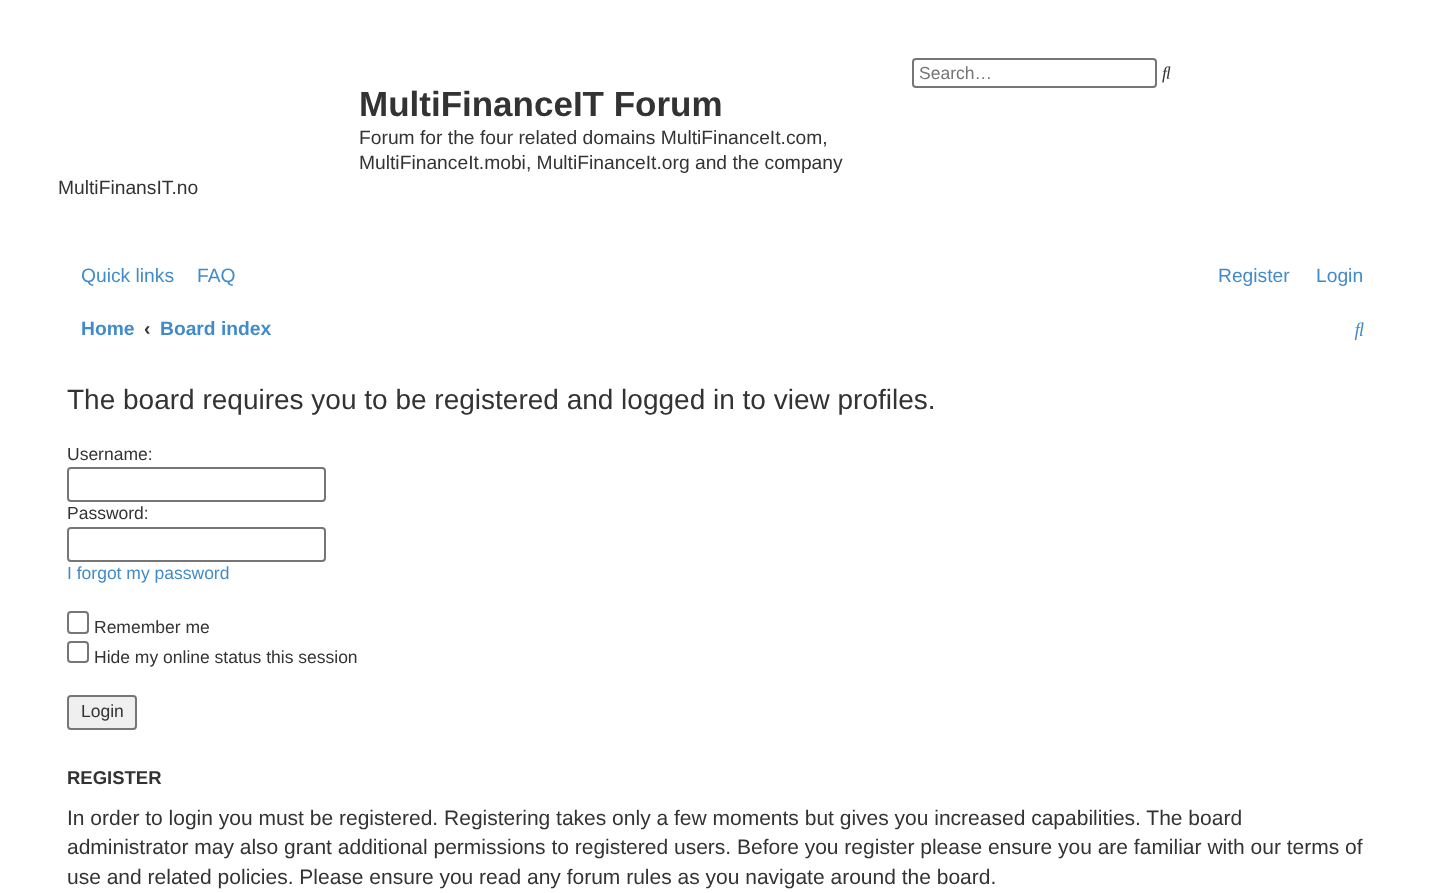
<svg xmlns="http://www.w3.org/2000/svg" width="1429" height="893">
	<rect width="100%" height="100%" fill="#FFFFFF" />
	<rect x="913" y="59" width="243" height="28" rx="3" fill="none" stroke="#767676" stroke-width="2" />
	<text x="919" y="79" font-family="Liberation Sans" font-size="17.5" fill="#757575">Search…</text>
	<image x="1162" y="66" width="9" height="17" href="assets/img1.png" />
	<text x="359" y="116" font-family="Liberation Sans" font-size="35" font-weight="700" fill="#333333">MultiFinanceIT Forum</text>
	<g font-family="Liberation Sans" font-size="19.25" fill="#333333">
		<text x="359" y="144">Forum for the four related domains MultiFinanceIt.com,</text>
		<text x="359" y="169">MultiFinanceIt.mobi, MultiFinanceIt.org and the company</text>
		<text x="58" y="194">MultiFinansIT.no</text>
	</g>
	<g font-family="Liberation Sans" font-size="19.25" fill="#428BCA">
		<text x="81" y="282">Quick links</text>
		<text x="197" y="282">FAQ</text>
		<text x="1218" y="282">Register</text>
		<text x="1316" y="282">Login</text>
	</g>
	<text x="81" y="335" font-family="Liberation Sans" font-size="19.25" font-weight="700" fill="#428BCA">Home</text>
	<text x="144" y="335" font-family="Liberation Sans" font-size="19.25" font-weight="700" fill="#333333">‹</text>
	<text x="160" y="335" font-family="Liberation Sans" font-size="19.25" font-weight="700" fill="#428BCA">Board index</text>
	<image x="1354" y="322" width="10" height="19" href="assets/img2.png" />
	<text x="67" y="409" font-family="Liberation Sans" font-size="28" fill="#333333">The board requires you to be registered and logged in to view profiles.</text>
	<text x="67" y="460" font-family="Liberation Sans" font-size="17.5" fill="#333333">Username:</text>
	<rect x="68" y="468" width="257" height="33" rx="3" fill="none" stroke="#767676" stroke-width="2" />
	<text x="67" y="519" font-family="Liberation Sans" font-size="17.5" fill="#333333">Password:</text>
	<rect x="68" y="528" width="257" height="33" rx="3" fill="none" stroke="#767676" stroke-width="2" />
	<text x="67" y="579" font-family="Liberation Sans" font-size="17.5" fill="#428BCA">I forgot my password</text>
	<rect x="68" y="612" width="20" height="21" rx="3" fill="none" stroke="#767676" stroke-width="2" />
	<text x="94" y="633" font-family="Liberation Sans" font-size="17.5" fill="#333333">Remember me</text>
	<rect x="68" y="642" width="20" height="20" rx="3" fill="none" stroke="#767676" stroke-width="2" />
	<text x="94" y="663" font-family="Liberation Sans" font-size="17.5" fill="#333333">Hide my online status this session</text>
	<rect x="68" y="696" width="68" height="33" rx="3" fill="#EFEFEF" stroke="#767676" stroke-width="2" />
	<text x="81" y="717" font-family="Liberation Sans" font-size="17.5" fill="#333333">Login</text>
	<text x="67" y="784" font-family="Liberation Sans" font-size="18.5" font-weight="700" fill="#333333">REGISTER</text>
	<g font-family="Liberation Sans" font-size="21" fill="#333333">
		<text x="67" y="825">In order to login you must be registered. Registering takes only a few moments but gives you increased capabilities. The board</text>
		<text x="67" y="854">administrator may also grant additional permissions to registered users. Before you register please ensure you are familiar with our terms of</text>
		<text x="67" y="884">use and related policies. Please ensure you read any forum rules as you navigate around the board.</text>
	</g>
</svg>
